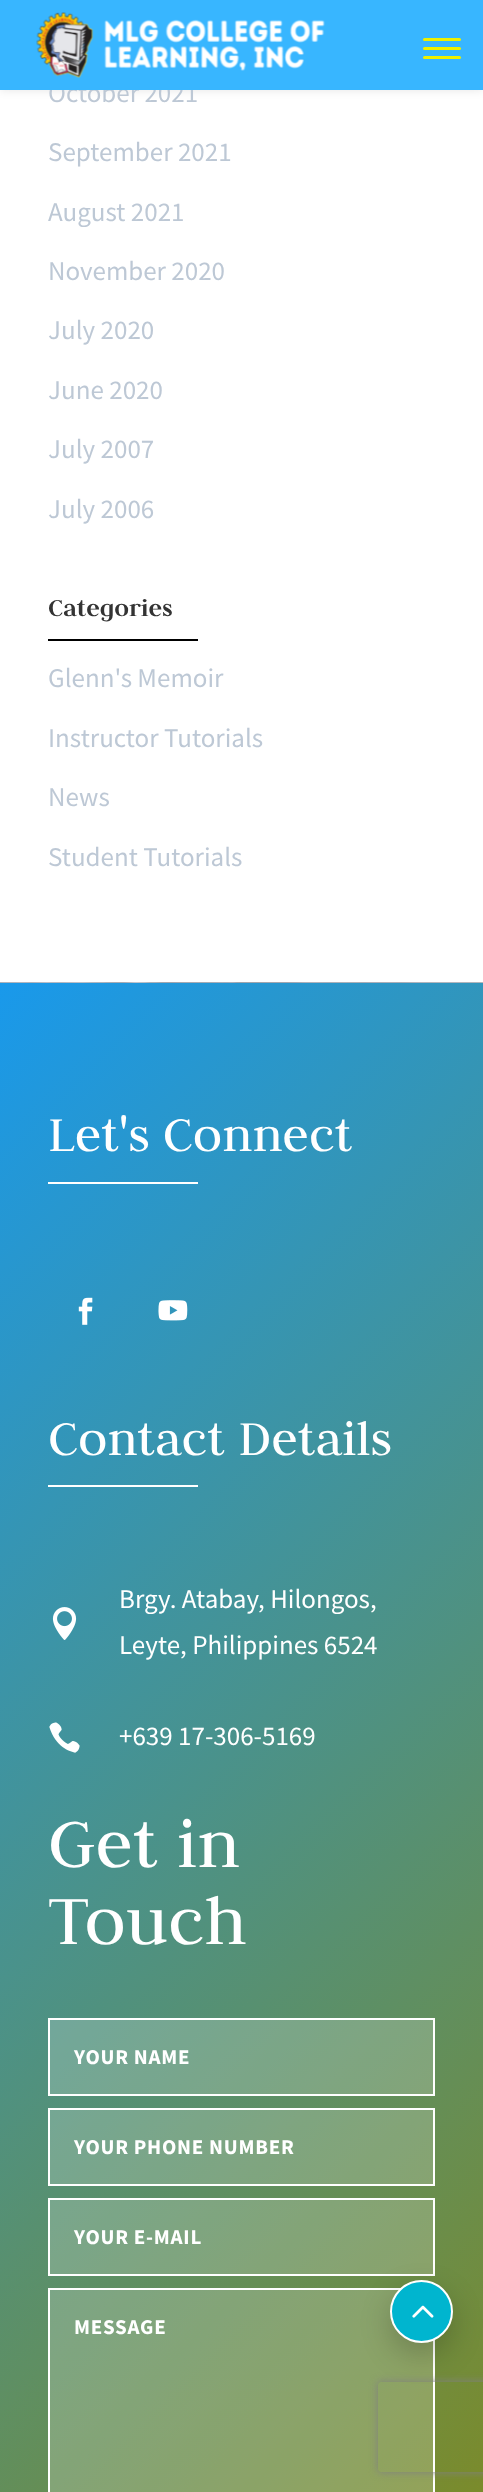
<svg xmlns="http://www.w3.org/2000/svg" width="483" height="2492">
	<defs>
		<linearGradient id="g1" gradientUnits="userSpaceOnUse" x1="-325" y1="1308" x2="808" y2="2441"><stop offset="0" stop-color="#1999EB" /><stop offset="1" stop-color="#888911" /></linearGradient>
		<clipPath id="clip1"><path d="M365 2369H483V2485H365ZM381 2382H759C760.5 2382 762 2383.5 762 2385V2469C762 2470.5 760.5 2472 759 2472H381C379.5 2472 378 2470.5 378 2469V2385C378 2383.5 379.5 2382 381 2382Z" clip-rule="evenodd" /></clipPath>
	</defs>
	<rect width="100%" height="100%" fill="#FFFFFF" />
	<rect x="0" y="0" width="483" height="90" fill="#000000" fill-opacity="0.1" filter="blur(5px)" />
	<text x="48" y="102" font-family="Source Sans Pro" font-size="27" fill="#BDC8D5">October 2021</text>
	<rect x="0" y="0" width="483" height="90" fill="#38B6FF" />
	<image x="36" y="12" width="289" height="66" href="assets/img1.png" />
	<rect x="423" y="56" width="38" height="3" rx="1.5" fill="#EDF000" />
	<rect x="423" y="38" width="38" height="3" rx="1.5" fill="#EDF000" />
	<rect x="423" y="47" width="38" height="3" rx="1.5" fill="#EDF000" />
	<g font-family="Source Sans Pro" font-size="27" fill="#BDC8D5">
		<text x="48" y="161">September 2021</text>
		<text x="48" y="221">August 2021</text>
		<text x="48" y="280">November 2020</text>
		<text x="48" y="339">July 2020</text>
		<text x="48" y="399">June 2020</text>
		<text x="48" y="458">July 2007</text>
		<text x="48" y="518">July 2006</text>
	</g>
	<text x="48" y="616" font-family="Judson" font-size="27" font-weight="700" fill="#333333">Categories</text>
	<rect x="48" y="639" width="150" height="2" fill="#000000" />
	<g font-family="Source Sans Pro" font-size="27" fill="#BDC8D5">
		<text x="48" y="687">Glenn's Memoir</text>
		<text x="48" y="747">Instructor Tutorials</text>
		<text x="48" y="806">News</text>
		<text x="48" y="866">Student Tutorials</text>
	</g>
	<image x="0" y="982" width="483" height="1" href="assets/img2.png" />
	<rect x="0" y="983" width="483" height="1509" fill="url(#g1)" />
	<text x="48" y="1151" font-family="Judson" font-size="54" fill="#FFFFFF">Let's Connect</text>
	<rect x="48" y="1182" width="150" height="2" fill="#FFFFFF" />
	<image x="78" y="1297" width="15" height="28" href="assets/img3.png" />
	<image x="158" y="1300" width="30" height="21" href="assets/img4.png" />
	<text x="48" y="1455" font-family="Judson" font-size="54" fill="#FFFFFF">Contact Details</text>
	<rect x="48" y="1485" width="150" height="2" fill="#FFFFFF" />
	<image x="52" y="1607" width="25" height="33" href="assets/img5.png" />
	<g font-family="Source Sans Pro" font-size="27" fill="#FFFFFF">
		<text x="119" y="1608">Brgy. Atabay, Hilongos,</text>
		<text x="119" y="1654">Leyte, Philippines 6524</text>
	</g>
	<image x="49" y="1722" width="31" height="31" href="assets/img6.png" />
	<text x="119" y="1745" font-family="Source Sans Pro" font-size="27" fill="#FFFFFF">+639 17-306-5169</text>
	<g font-family="Judson" font-size="76.5" fill="#FFFFFF">
		<text x="48" y="1867">Get in</text>
		<text x="48" y="1944">Touch</text>
	</g>
	<rect x="49" y="2019" width="385" height="76" fill="#FFFFFF" fill-opacity="0.2" stroke="#FFFFFF" stroke-width="2" />
	<text x="74" y="2064" font-family="Source Sans Pro" font-size="21" font-weight="700" letter-spacing="0.75" fill="#FFFFFF">YOUR NAME</text>
	<rect x="49" y="2109" width="385" height="76" fill="#FFFFFF" fill-opacity="0.2" stroke="#FFFFFF" stroke-width="2" />
	<text x="74" y="2154" font-family="Source Sans Pro" font-size="21" font-weight="700" letter-spacing="0.75" fill="#FFFFFF">YOUR PHONE NUMBER</text>
	<rect x="49" y="2199" width="385" height="76" fill="#FFFFFF" fill-opacity="0.2" stroke="#FFFFFF" stroke-width="2" />
	<text x="74" y="2244" font-family="Source Sans Pro" font-size="21" font-weight="700" letter-spacing="0.75" fill="#FFFFFF">YOUR E-MAIL</text>
	<rect x="49" y="2289" width="385" height="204" fill="#FFFFFF" fill-opacity="0.2" stroke="#FFFFFF" stroke-width="2" />
	<text x="74" y="2334" font-family="Source Sans Pro" font-size="21" font-weight="700" letter-spacing="0.75" fill="#FFFFFF">MESSAGE</text>
	<rect x="390" y="2292" width="63" height="63" rx="31.5" fill="#000000" fill-opacity="0.2" filter="blur(15px)" />
	<circle cx="421.5" cy="2311.5" r="30.5" fill="#00B5CF" stroke="#FFFFFF" stroke-width="2" />
	<image x="412" y="2305" width="22" height="13" href="assets/img7.png" />
	<g clip-path="url(#clip1)">
		<rect x="378" y="2382" width="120" height="90" rx="3" fill="#808080" filter="blur(4px)" />
	</g>
</svg>
